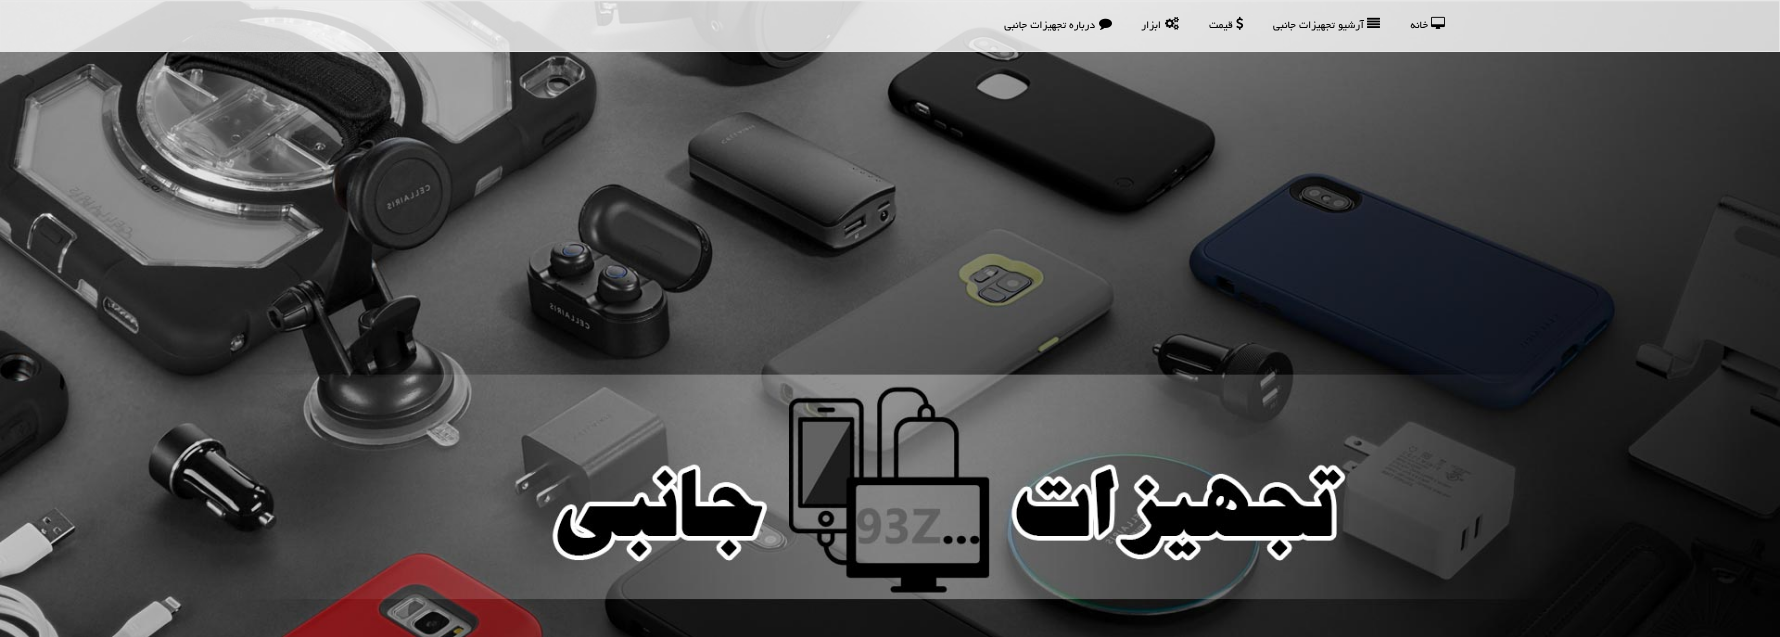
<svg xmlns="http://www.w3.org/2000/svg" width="1780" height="637">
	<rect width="100%" height="100%" fill="#FFFFFF" />
	<image x="0" y="1" width="1780" height="636" href="assets/img1.png" />
	<rect x="1" y="1" width="1778" height="50" fill="#FFFFFF" fill-opacity="0.8" />
	<rect x="1" y="1" width="1778" height="1" fill="#FFFFFF" fill-opacity="0.15" />
	<rect x="0.5" y="0.5" width="1779" height="51" fill="none" stroke="#E7E7E7" />
	<image x="1431" y="16" width="14" height="13" href="assets/img2.png" />
	<text x="1428" y="28" font-family="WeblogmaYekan" font-size="13" direction="rtl" fill="#000000">خانه</text>
	<image x="1367" y="17" width="13" height="11" href="assets/img3.png" />
	<text x="1364" y="28" font-family="WeblogmaYekan" font-size="13" direction="rtl" fill="#000000">آرشیو تجهیزات جانبی</text>
	<image x="1236" y="16" width="8" height="14" href="assets/img4.png" />
	<text x="1233" y="28" font-family="WeblogmaYekan" font-size="13" direction="rtl" fill="#000000">قیمت</text>
	<image x="1165" y="17" width="14" height="13" href="assets/img5.png" />
	<text x="1161" y="28" font-family="WeblogmaYekan" font-size="13" direction="rtl" fill="#000000">ابزار</text>
	<image x="1099" y="18" width="13" height="12" href="assets/img6.png" />
	<text x="1095" y="28" font-family="WeblogmaYekan" font-size="13" direction="rtl" fill="#000000">درباره تجهیزات جانبی</text>
</svg>
